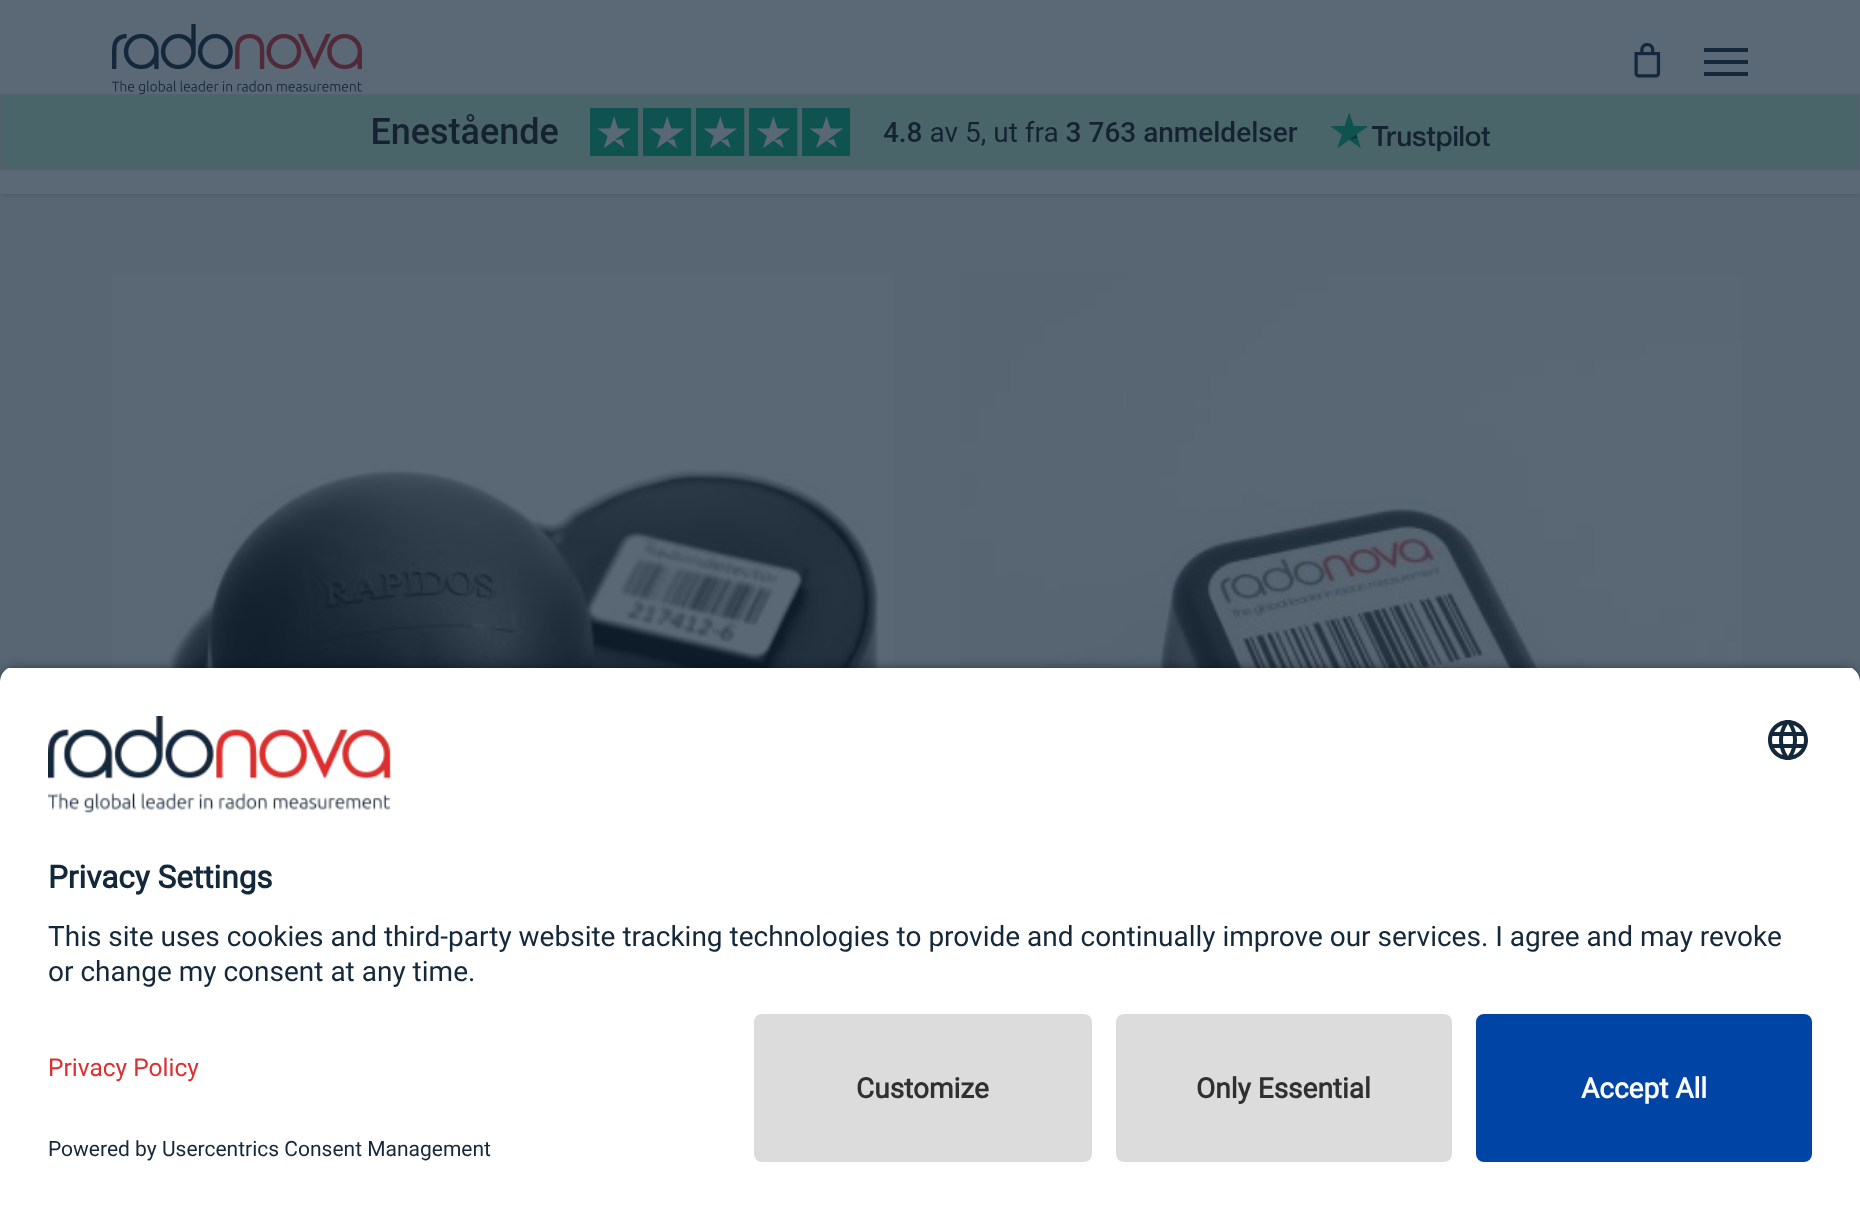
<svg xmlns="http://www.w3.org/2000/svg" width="1860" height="1209">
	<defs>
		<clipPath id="clip1"><path d="M16 666H1844C1853 666 1860 673 1860 682V998H0V682C0 673 7 666 16 666Z" /></clipPath>
	</defs>
	<rect width="100%" height="100%" fill="#586674" />
	<rect x="0" y="0" width="1860" height="194" fill="#0E1C2A" fill-opacity="0.22" filter="blur(3px)" />
	<rect x="0" y="0" width="1860" height="194" fill="#5B6977" />
	<image x="112" y="24" width="250" height="70" href="assets/img1.png" />
	<image x="1634" y="42" width="27" height="36" href="assets/img2.png" />
	<rect x="1704" y="48" width="44" height="4" fill="#14283C" />
	<rect x="1704" y="72" width="44" height="4" fill="#14283C" />
	<rect x="1704" y="60" width="44" height="4" fill="#14283C" />
	<rect x="1" y="95" width="1858" height="74" fill="#4A6569" stroke="#53616F" stroke-width="2" />
	<image x="373" y="108" width="1117" height="48" href="assets/img3.png" />
	<image x="112" y="274" width="782" height="394" href="assets/img4.png" />
	<image x="960" y="274" width="782" height="394" href="assets/img5.png" />
	<rect x="0" y="672" width="1860" height="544" rx="16" fill="#000000" fill-opacity="0.8" filter="blur(7px)" />
	<g clip-path="url(#clip1)">
		<rect x="0" y="668" width="1860" height="330" fill="#FFFFFF" />
	</g>
	<image x="48" y="716" width="343" height="98" href="assets/img6.png" />
	<image x="1768" y="720" width="40" height="40" href="assets/img7.png" />
	<text x="48" y="888" font-family="Roboto" font-size="31.5" font-weight="700" fill="#14283C">Privacy Settings</text>
	<g font-family="Roboto" font-size="28" fill="#14283C">
		<text x="48" y="946">This site uses cookies and third-party website tracking technologies to provide and continually improve our services. I agree and may revoke</text>
		<text x="48" y="981">or change my consent at any time.</text>
	</g>
	<rect x="0" y="998" width="1860" height="211" fill="#FFFFFF" />
	<text x="48" y="1076" font-family="Roboto" font-size="24.5" fill="#DC3030">Privacy Policy</text>
	<text x="48" y="1156" font-family="Roboto" font-size="21" fill="#14283C">Powered by Usercentrics Consent Management</text>
	<rect x="754" y="1014" width="338" height="148" rx="8" fill="#DCDCDC" />
	<text x="856" y="1098" font-family="Roboto" font-size="28" font-weight="700" fill="#303030">Customize</text>
	<rect x="1116" y="1014" width="336" height="148" rx="8" fill="#DCDCDC" />
	<text x="1196" y="1098" font-family="Roboto" font-size="28" font-weight="700" fill="#303030">Only Essential</text>
	<rect x="1476" y="1014" width="336" height="148" rx="8" fill="#0045A5" />
	<text x="1581" y="1098" font-family="Roboto" font-size="28" font-weight="700" fill="#FFFFFF">Accept All</text>
</svg>
